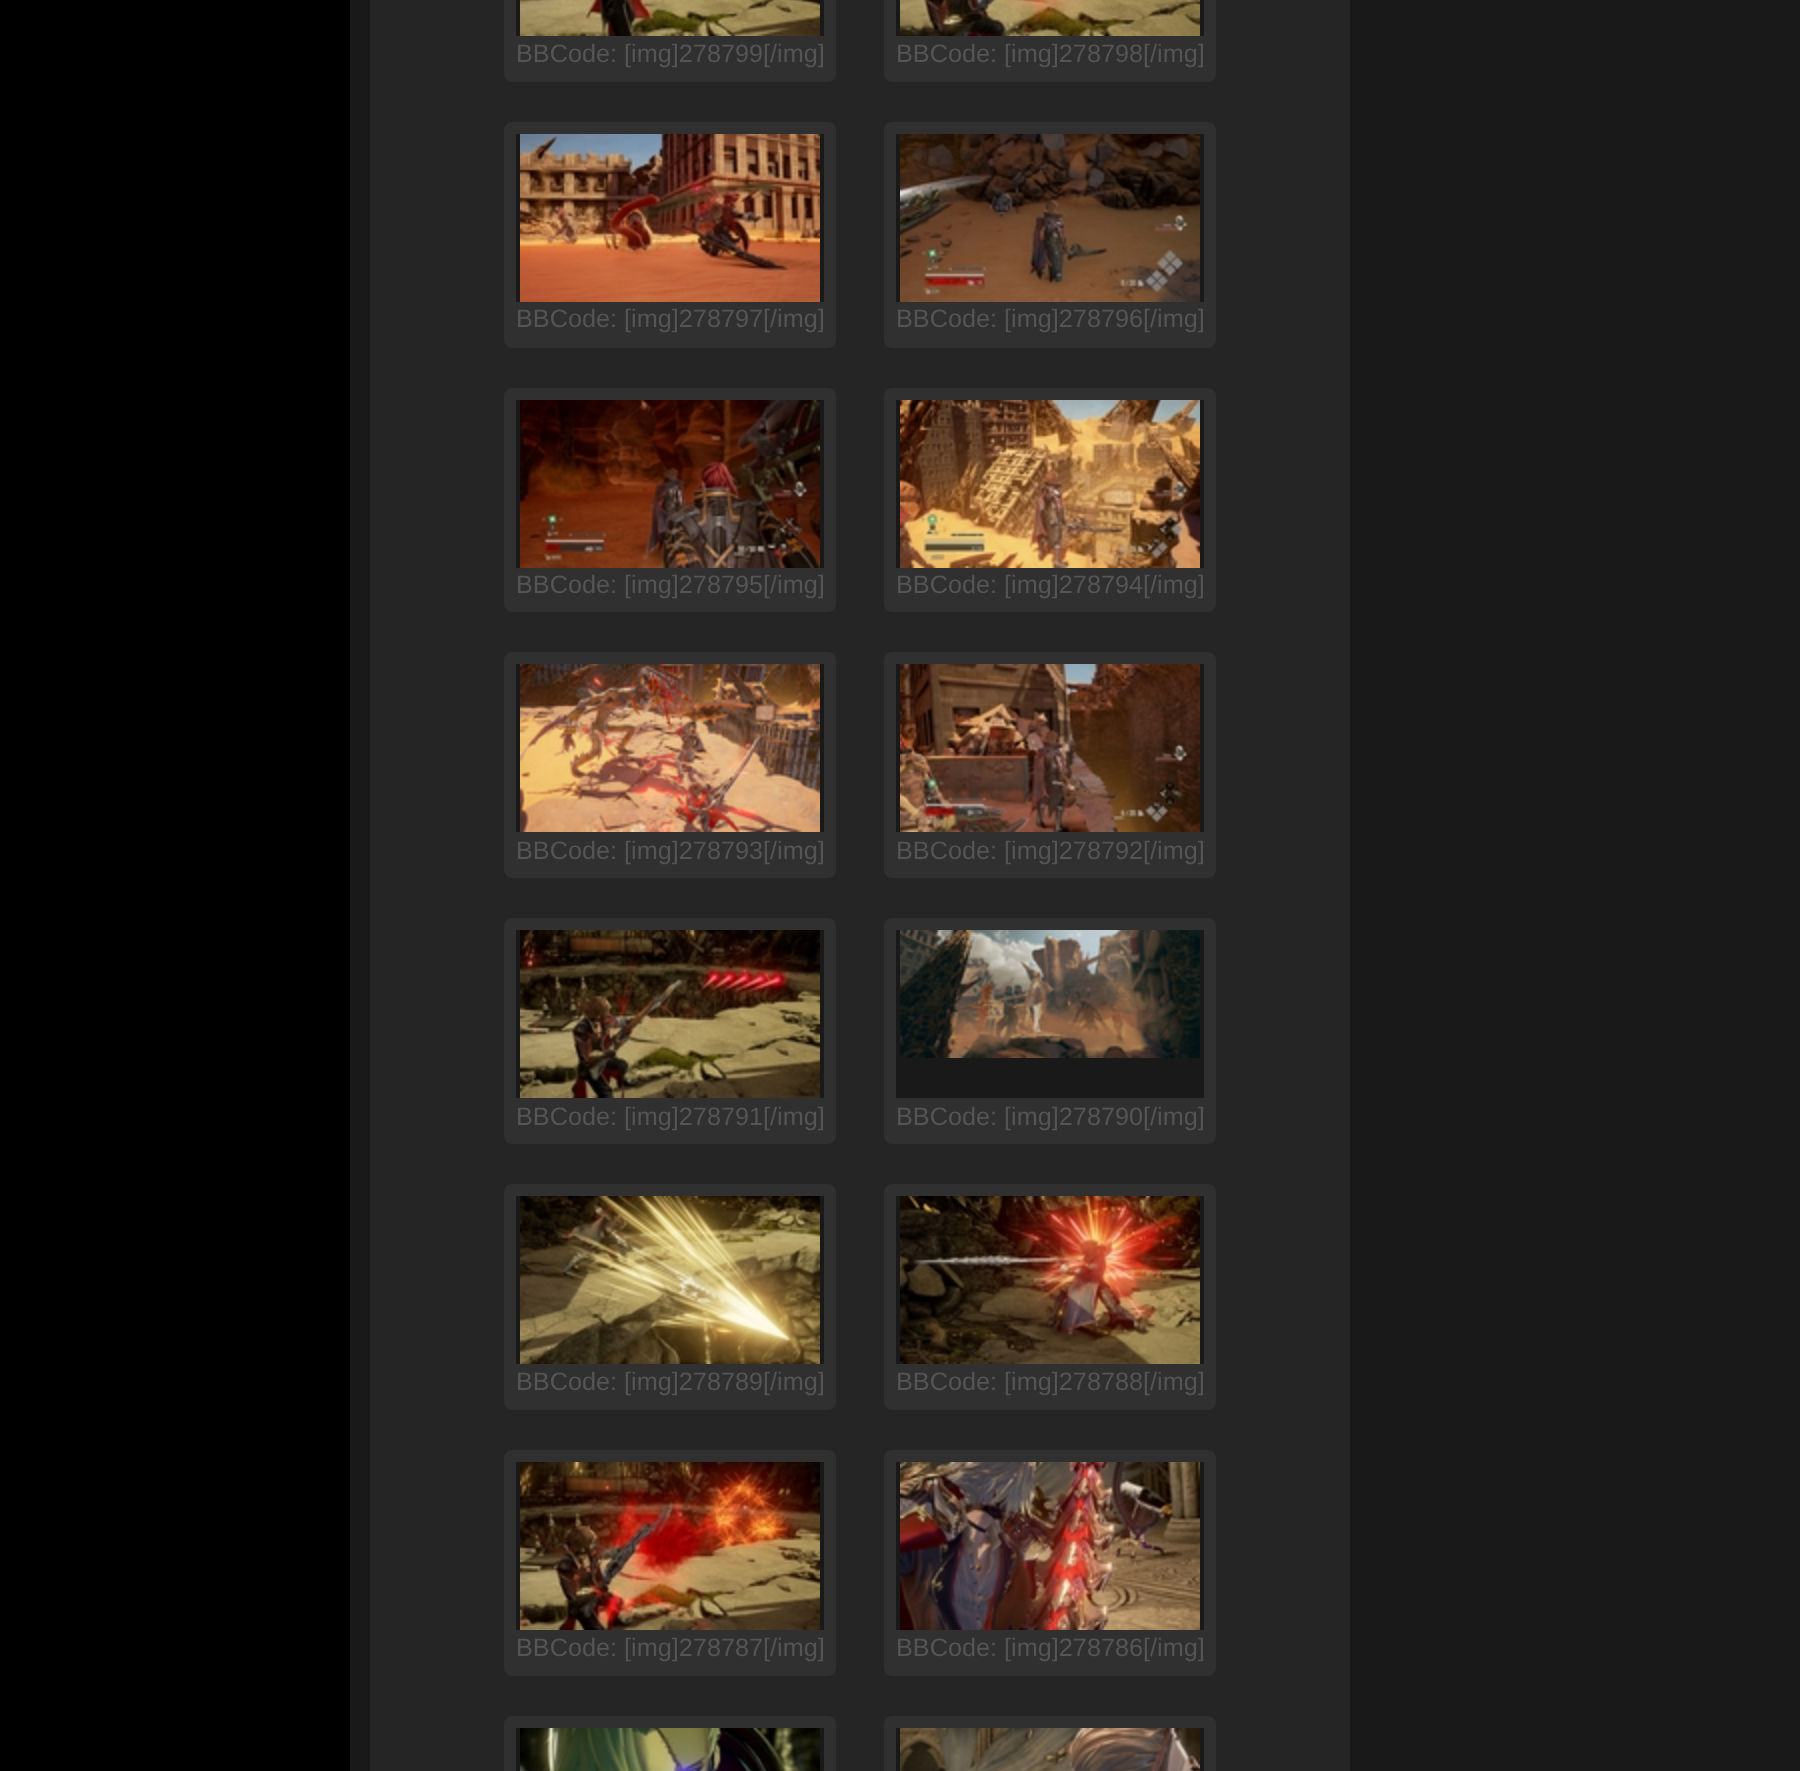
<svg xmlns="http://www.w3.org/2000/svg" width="1800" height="1771">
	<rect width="100%" height="100%" fill="#000000" />
	<rect x="350" y="0" width="1450" height="1771" fill="#191919" />
	<rect x="370" y="0" width="980" height="1771" fill="#252525" />
	<rect x="504" y="-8" width="332" height="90" rx="8" fill="#303030" />
	<rect x="516" y="0" width="308" height="36" fill="#191919" />
	<image x="520" y="0" width="300" height="36" href="assets/img1.png" />
	<text x="516" y="62" font-family="Liberation Sans" font-size="25.25" fill="#555555">BBCode: [img]278799[/img]</text>
	<rect x="884" y="-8" width="332" height="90" rx="8" fill="#303030" />
	<rect x="896" y="0" width="308" height="36" fill="#191919" />
	<image x="900" y="0" width="300" height="36" href="assets/img2.png" />
	<text x="896" y="62" font-family="Liberation Sans" font-size="25.25" fill="#555555">BBCode: [img]278798[/img]</text>
	<rect x="504" y="122" width="332" height="226" rx="8" fill="#303030" />
	<rect x="516" y="134" width="308" height="168" fill="#191919" />
	<image x="520" y="134" width="300" height="168" href="assets/img3.png" />
	<text x="516" y="327" font-family="Liberation Sans" font-size="25.25" fill="#555555">BBCode: [img]278797[/img]</text>
	<rect x="884" y="122" width="332" height="226" rx="8" fill="#303030" />
	<rect x="896" y="134" width="308" height="168" fill="#191919" />
	<image x="900" y="134" width="300" height="168" href="assets/img4.png" />
	<text x="896" y="327" font-family="Liberation Sans" font-size="25.25" fill="#555555">BBCode: [img]278796[/img]</text>
	<rect x="504" y="388" width="332" height="224" rx="8" fill="#303030" />
	<rect x="516" y="400" width="308" height="168" fill="#191919" />
	<image x="520" y="400" width="300" height="168" href="assets/img5.png" />
	<text x="516" y="593" font-family="Liberation Sans" font-size="25.25" fill="#555555">BBCode: [img]278795[/img]</text>
	<rect x="884" y="388" width="332" height="224" rx="8" fill="#303030" />
	<rect x="896" y="400" width="308" height="168" fill="#191919" />
	<image x="900" y="400" width="300" height="168" href="assets/img6.png" />
	<text x="896" y="593" font-family="Liberation Sans" font-size="25.25" fill="#555555">BBCode: [img]278794[/img]</text>
	<rect x="504" y="652" width="332" height="226" rx="8" fill="#303030" />
	<rect x="516" y="664" width="308" height="168" fill="#191919" />
	<image x="520" y="664" width="300" height="168" href="assets/img7.png" />
	<text x="516" y="859" font-family="Liberation Sans" font-size="25.25" fill="#555555">BBCode: [img]278793[/img]</text>
	<rect x="884" y="652" width="332" height="226" rx="8" fill="#303030" />
	<rect x="896" y="664" width="308" height="168" fill="#191919" />
	<image x="900" y="664" width="300" height="168" href="assets/img8.png" />
	<text x="896" y="859" font-family="Liberation Sans" font-size="25.25" fill="#555555">BBCode: [img]278792[/img]</text>
	<rect x="504" y="918" width="332" height="226" rx="8" fill="#303030" />
	<rect x="516" y="930" width="308" height="168" fill="#191919" />
	<image x="520" y="930" width="300" height="168" href="assets/img9.png" />
	<text x="516" y="1125" font-family="Liberation Sans" font-size="25.25" fill="#555555">BBCode: [img]278791[/img]</text>
	<rect x="884" y="918" width="332" height="226" rx="8" fill="#303030" />
	<rect x="896" y="930" width="308" height="168" fill="#191919" />
	<image x="900" y="930" width="300" height="128" href="assets/img10.png" />
	<text x="896" y="1125" font-family="Liberation Sans" font-size="25.25" fill="#555555">BBCode: [img]278790[/img]</text>
	<rect x="504" y="1184" width="332" height="226" rx="8" fill="#303030" />
	<rect x="516" y="1196" width="308" height="168" fill="#191919" />
	<image x="520" y="1196" width="300" height="168" href="assets/img11.png" />
	<text x="516" y="1390" font-family="Liberation Sans" font-size="25.25" fill="#555555">BBCode: [img]278789[/img]</text>
	<rect x="884" y="1184" width="332" height="226" rx="8" fill="#303030" />
	<rect x="896" y="1196" width="308" height="168" fill="#191919" />
	<image x="900" y="1196" width="300" height="168" href="assets/img12.png" />
	<text x="896" y="1390" font-family="Liberation Sans" font-size="25.25" fill="#555555">BBCode: [img]278788[/img]</text>
	<rect x="504" y="1450" width="332" height="226" rx="8" fill="#303030" />
	<rect x="516" y="1462" width="308" height="168" fill="#191919" />
	<image x="520" y="1462" width="300" height="168" href="assets/img13.png" />
	<text x="516" y="1656" font-family="Liberation Sans" font-size="25.25" fill="#555555">BBCode: [img]278787[/img]</text>
	<rect x="884" y="1450" width="332" height="226" rx="8" fill="#303030" />
	<rect x="896" y="1462" width="308" height="168" fill="#191919" />
	<image x="900" y="1462" width="300" height="168" href="assets/img14.png" />
	<text x="896" y="1656" font-family="Liberation Sans" font-size="25.25" fill="#555555">BBCode: [img]278786[/img]</text>
	<rect x="504" y="1716" width="332" height="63" rx="8" fill="#303030" />
	<rect x="516" y="1728" width="308" height="43" fill="#191919" />
	<image x="520" y="1728" width="300" height="43" href="assets/img15.png" />
	<rect x="884" y="1716" width="332" height="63" rx="8" fill="#303030" />
	<rect x="896" y="1728" width="308" height="43" fill="#191919" />
	<image x="900" y="1728" width="300" height="43" href="assets/img16.png" />
</svg>
